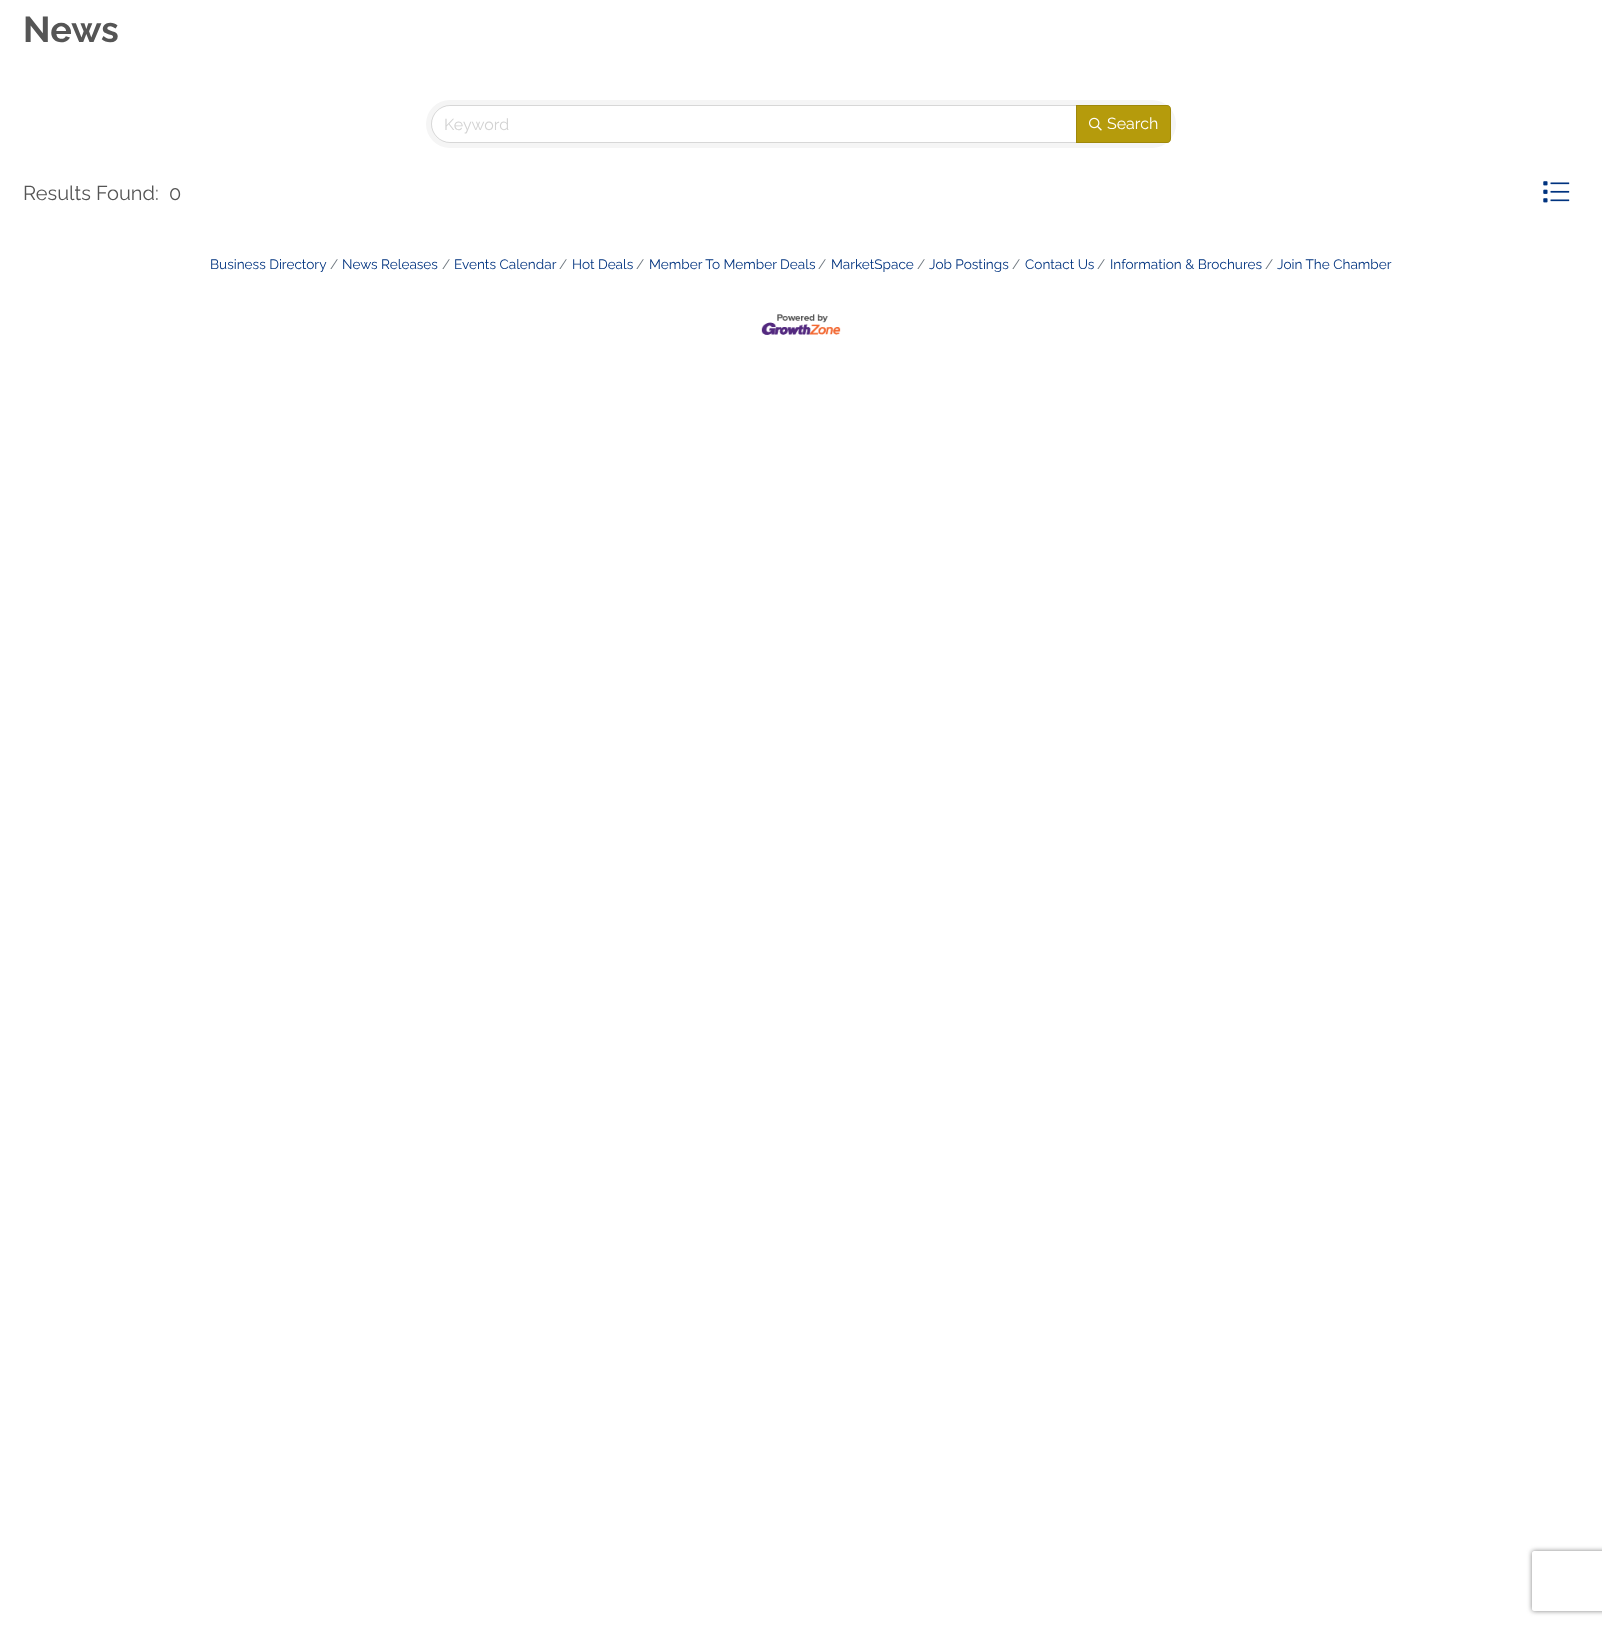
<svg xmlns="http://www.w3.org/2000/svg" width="1602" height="1625">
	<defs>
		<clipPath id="clip1"><path d="M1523 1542H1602V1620H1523ZM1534 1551H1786C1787 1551 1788 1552 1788 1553V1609C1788 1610 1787 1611 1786 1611H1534C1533 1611 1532 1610 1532 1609V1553C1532 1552 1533 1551 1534 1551Z" clip-rule="evenodd" /></clipPath>
	</defs>
	<rect width="100%" height="100%" fill="#FFFFFF" />
	<text x="23" y="42" font-family="Raleway" font-size="36" font-weight="700" fill="#555555">News</text>
	<rect x="426" y="100" width="750" height="48" rx="24" fill="#F5F5F5" />
	<path d="M450 106H1076V142H450C440 142 432 134 432 124C432 114 440 106 450 106Z" fill="#FFFFFF" />
	<path d="M450 105.5H1076.5V142.5H450C440 142.5 431.5 134 431.5 124C431.5 114 440 105.5 450 105.5Z" fill="none" stroke="#000000" stroke-opacity="0.12" />
	<text x="444" y="130" font-family="Raleway" font-size="16" fill="#D2D2D2">Keyword</text>
	<path d="M1076 105H1167C1169 105 1171 107 1171 109V139C1171 141 1169 143 1167 143H1076Z" fill="#B59B0C" />
	<path d="M1076.5 105.5H1167C1169 105.5 1170.5 107 1170.5 109V139C1170.5 141 1169 142.5 1167 142.5H1076.5Z" fill="none" stroke="#000000" stroke-opacity="0.12" />
	<image x="1089" y="117" width="13" height="14" href="assets/img1.png" />
	<text x="1107" y="129" font-family="Raleway" font-size="16" fill="#FFFFFF">Search</text>
	<g font-family="Raleway" font-size="20" fill="#555555">
		<text x="23" y="200">Results Found:</text>
		<text x="169" y="200">0</text>
	</g>
	<image x="1543" y="181" width="27" height="22" href="assets/img2.png" />
	<text x="210" y="269" font-family="Raleway" font-size="13.6" fill="#00337F">Business Directory</text>
	<text x="330" y="269" font-family="Raleway" font-size="13.6" fill="#6C757D">/</text>
	<text x="342" y="269" font-family="Raleway" font-size="13.6" fill="#00337F">News Releases</text>
	<text x="442" y="269" font-family="Raleway" font-size="13.6" fill="#6C757D">/</text>
	<text x="454" y="269" font-family="Raleway" font-size="13.6" fill="#00337F">Events Calendar</text>
	<text x="559" y="269" font-family="Raleway" font-size="13.6" fill="#6C757D">/</text>
	<text x="572" y="269" font-family="Raleway" font-size="13.6" fill="#00337F">Hot Deals</text>
	<text x="636" y="269" font-family="Raleway" font-size="13.6" fill="#6C757D">/</text>
	<text x="649" y="269" font-family="Raleway" font-size="13.6" fill="#00337F">Member To Member Deals</text>
	<text x="818" y="269" font-family="Raleway" font-size="13.6" fill="#6C757D">/</text>
	<text x="831" y="269" font-family="Raleway" font-size="13.6" fill="#00337F">MarketSpace</text>
	<text x="917" y="269" font-family="Raleway" font-size="13.6" fill="#6C757D">/</text>
	<text x="929" y="269" font-family="Raleway" font-size="13.6" fill="#00337F">Job Postings</text>
	<text x="1012" y="269" font-family="Raleway" font-size="13.6" fill="#6C757D">/</text>
	<text x="1025" y="269" font-family="Raleway" font-size="13.6" fill="#00337F">Contact Us</text>
	<text x="1097" y="269" font-family="Raleway" font-size="13.6" fill="#6C757D">/</text>
	<text x="1110" y="269" font-family="Raleway" font-size="13.6" fill="#00337F">Information &amp; Brochures</text>
	<text x="1265" y="269" font-family="Raleway" font-size="13.6" fill="#6C757D">/</text>
	<text x="1277" y="269" font-family="Raleway" font-size="13.6" fill="#00337F">Join The Chamber</text>
	<image x="761" y="314" width="80" height="21" href="assets/img3.png" />
	<g clip-path="url(#clip1)">
		<rect x="1532" y="1551" width="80" height="60" rx="2" fill="#808080" filter="blur(2.5px)" />
	</g>
</svg>
